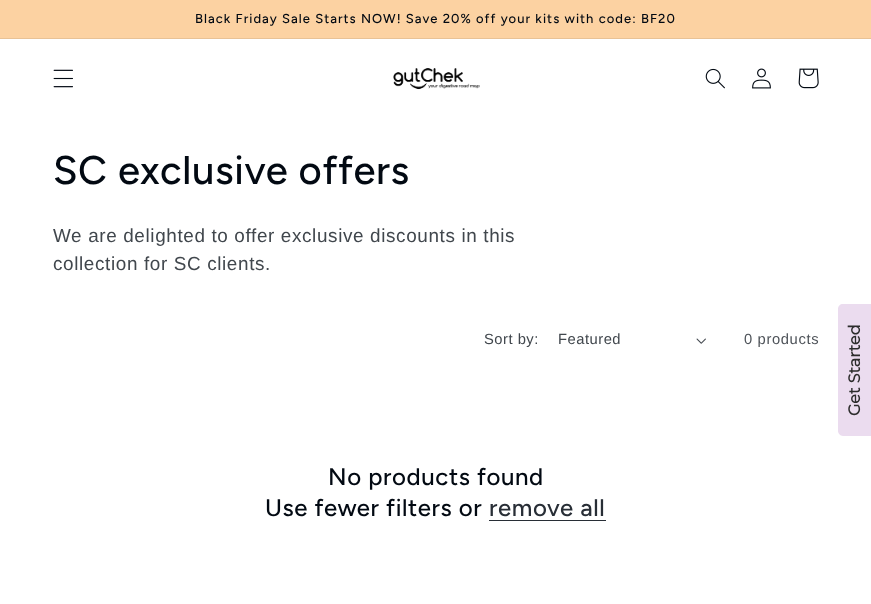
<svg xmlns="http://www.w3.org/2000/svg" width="871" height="604">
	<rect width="100%" height="100%" fill="#FFFFFF" />
	<rect x="0" y="0" width="871" height="38" fill="#FCD2A2" />
	<rect x="0" y="38" width="871" height="1" fill="#E8C296" />
	<text x="195" y="23" font-family="Figtree" font-size="13" font-weight="500" letter-spacing="1.05" fill="#020912">Black Friday Sale Starts NOW! Save 20% off your kits with code: BF20</text>
	<image x="53" y="69" width="20" height="19" href="assets/img1.png" />
	<image x="393" y="68" width="87" height="22" href="assets/img2.png" />
	<image x="705" y="68" width="20" height="21" href="assets/img3.png" />
	<image x="752" y="68" width="19" height="21" href="assets/img4.png" />
	<image x="798" y="68" width="21" height="21" href="assets/img5.png" />
	<text x="53" y="184" font-family="Figtree" font-size="40" font-weight="500" letter-spacing="0.6" fill="#020912">SC exclusive offers</text>
	<g font-family="Arimo" font-size="18.9" letter-spacing="0.63" fill="#41474D">
		<text x="53" y="242">We are delighted to offer exclusive discounts in this</text>
		<text x="53" y="270">collection for SC clients.</text>
	</g>
	<g font-family="Arimo" font-size="14.75" letter-spacing="0.5" fill="#41474D">
		<text x="484" y="344">Sort by:</text>
		<text x="558" y="344">Featured</text>
	</g>
	<image x="696" y="338" width="10" height="6" href="assets/img6.png" />
	<text x="744" y="344" font-family="Arimo" font-size="14.75" letter-spacing="0.63" fill="#4E5359">0 products</text>
	<g font-family="Figtree" font-size="24" font-weight="500" letter-spacing="0.6" fill="#020912">
		<text x="328" y="485">No products found</text>
		<text x="265" y="516">Use fewer filters or</text>
	</g>
	<text x="489" y="516" font-family="Figtree" font-size="24" font-weight="500" letter-spacing="0.6" fill="#282E36">remove all</text>
	<rect x="489" y="520" width="117" height="1" fill="#282E36" />
	<path d="M838 431V309C838 306 840 304 843 304H871V436H843C840 436 838 433 838 431Z" fill="#EBDCEF" />
	<text x="860" y="416" transform="rotate(-90 860 416)" font-family="Montserrat" font-size="16" font-weight="700" fill="#2C2C2C">Get Started</text>
</svg>
